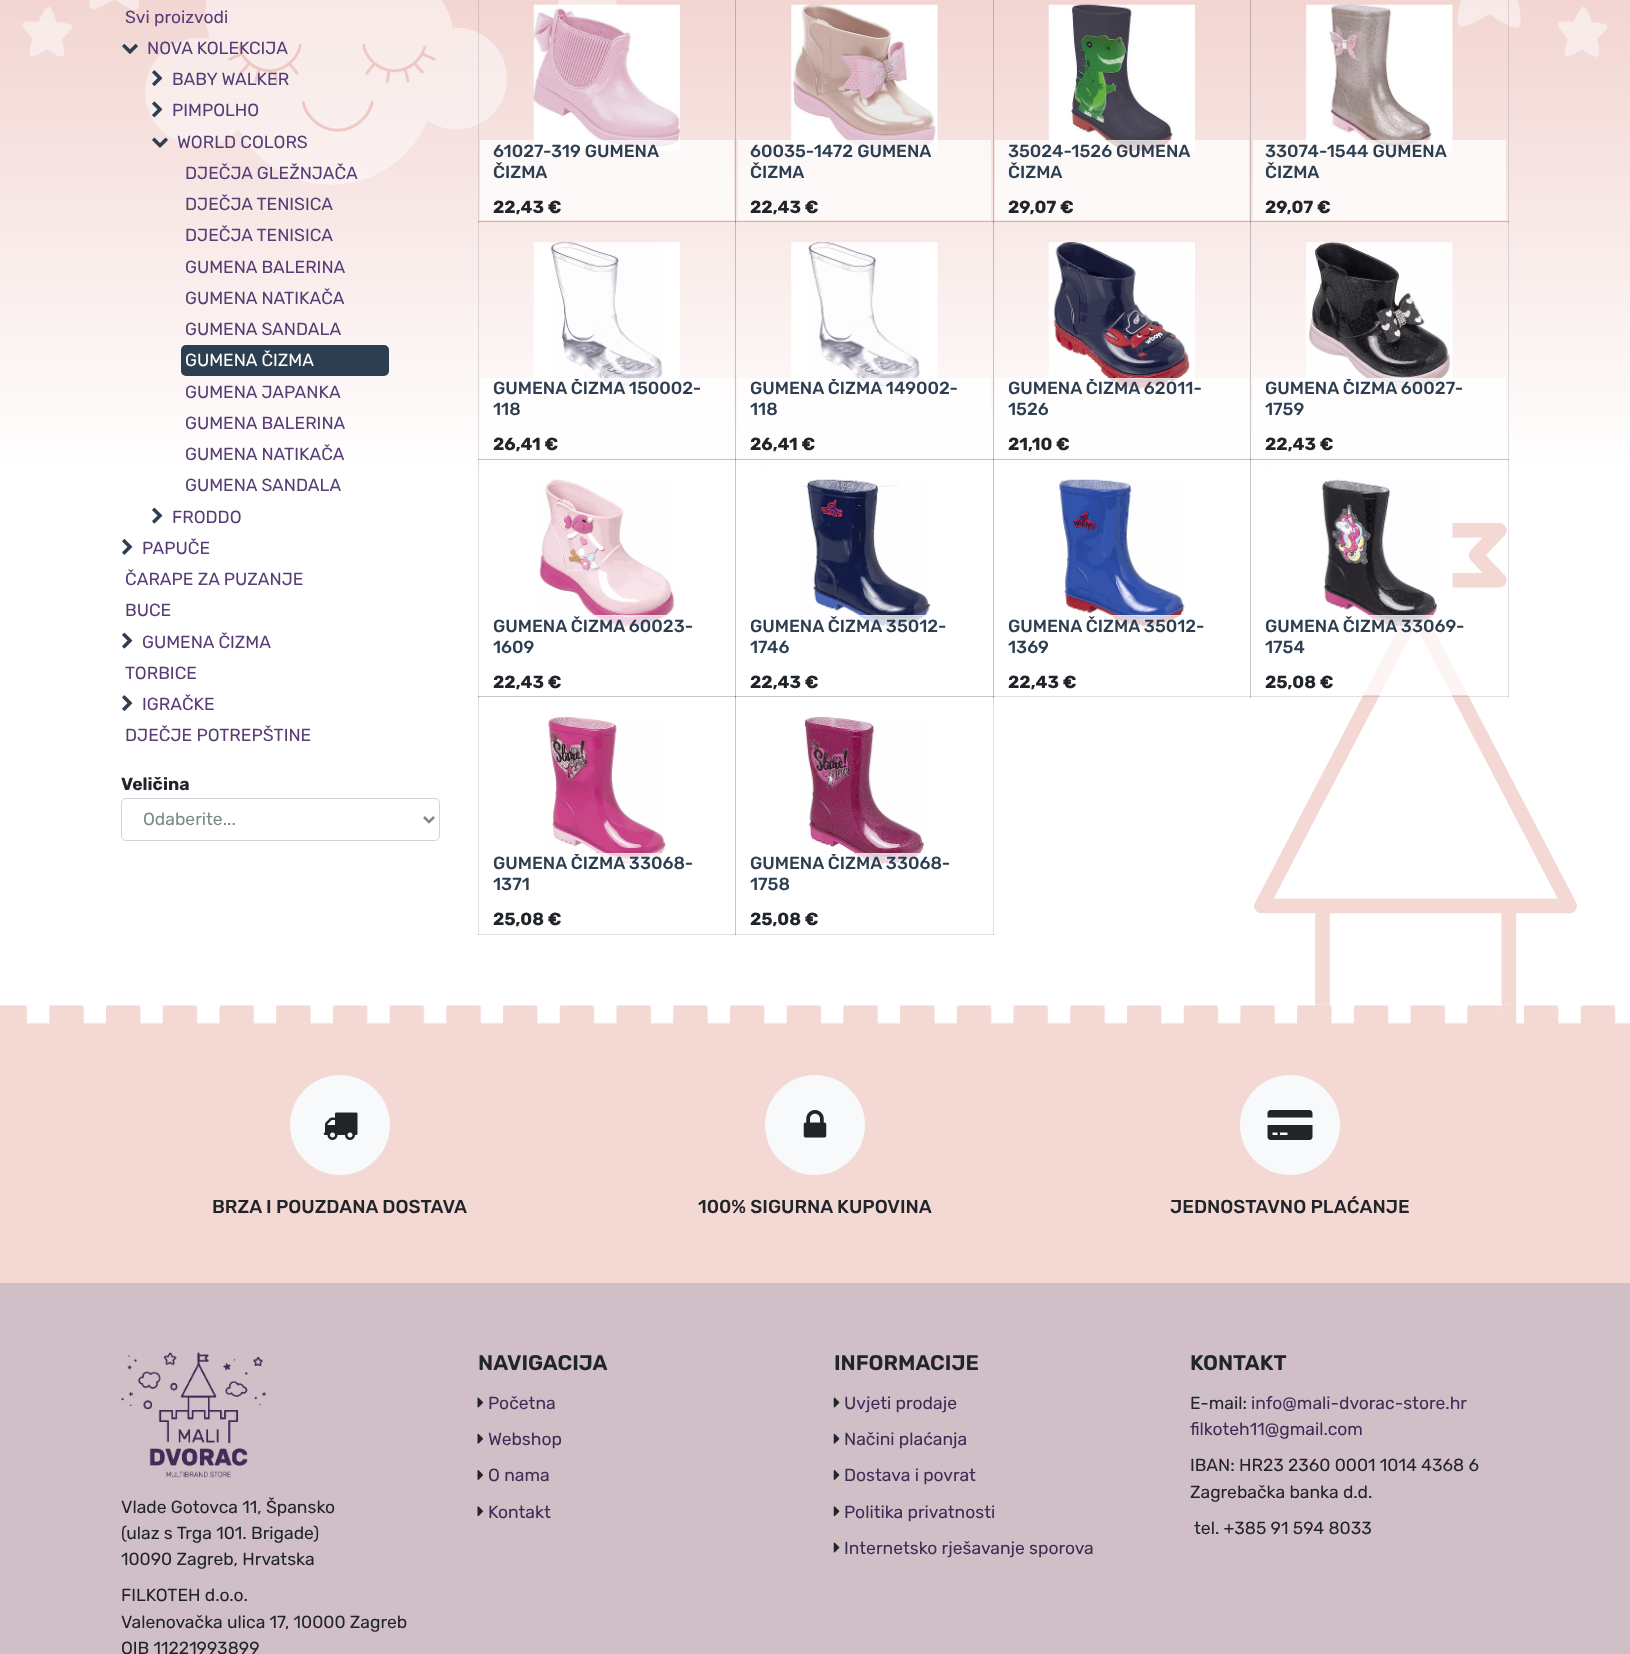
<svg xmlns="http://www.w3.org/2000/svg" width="1630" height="1654">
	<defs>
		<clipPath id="clip1"><rect x="480" y="379" width="254" height="79" /></clipPath>
		<clipPath id="clip2"><rect x="738" y="379" width="253" height="79" /></clipPath>
		<clipPath id="clip3"><rect x="995" y="379" width="254" height="79" /></clipPath>
		<clipPath id="clip4"><rect x="1253" y="379" width="253" height="79" /></clipPath>
		<clipPath id="clip5"><rect x="480" y="854" width="254" height="79" /></clipPath>
		<clipPath id="clip6"><rect x="738" y="854" width="253" height="79" /></clipPath>
	</defs>
	<rect width="100%" height="100%" fill="#FFFFFF" />
	<rect x="1508" y="459" width="1" height="239" fill="#E0E0E0" />
	<rect x="478" y="696" width="1" height="239" fill="#E0E0E0" />
	<rect x="478" y="934" width="258" height="1" fill="#E0E0E0" />
	<rect x="478" y="934" width="1" height="1" fill="#C7C7C7" />
	<rect x="478" y="696" width="258" height="1" fill="#E0E0E0" />
	<rect x="478" y="696" width="1" height="1" fill="#C7C7C7" />
	<rect x="735" y="696" width="1" height="239" fill="#C7C7C7" />
	<rect x="735" y="934" width="259" height="1" fill="#E0E0E0" />
	<rect x="735" y="934" width="1" height="1" fill="#A3A3A3" />
	<rect x="993" y="696" width="1" height="239" fill="#E0E0E0" />
	<rect x="993" y="934" width="1" height="1" fill="#C7C7C7" />
	<image x="0" y="0" width="1630" height="1005" href="assets/img1.png" />
	<text x="125" y="23" font-family="Rubik" font-size="17.5" fill="#573D75">Svi proizvodi</text>
	<image x="122" y="44" width="16" height="10" href="assets/img2.png" />
	<text x="147" y="54" font-family="Rubik" font-size="17.5" fill="#573D75">NOVA KOLEKCIJA</text>
	<image x="152" y="70" width="11" height="16" href="assets/img3.png" />
	<text x="172" y="85" font-family="Rubik" font-size="17.5" fill="#573D75">BABY WALKER</text>
	<image x="152" y="101" width="11" height="17" href="assets/img4.png" />
	<text x="172" y="116" font-family="Rubik" font-size="17.5" fill="#573D75">PIMPOLHO</text>
	<image x="152" y="137" width="16" height="11" href="assets/img5.png" />
	<g font-family="Rubik" font-size="17.5" fill="#573D75">
		<text x="177" y="148">WORLD COLORS</text>
		<text x="185" y="179">DJEČJA GLEŽNJAČA</text>
		<text x="185" y="210">DJEČJA TENISICA</text>
		<text x="185" y="241">DJEČJA TENISICA</text>
		<text x="185" y="273">GUMENA BALERINA</text>
		<text x="185" y="304">GUMENA NATIKAČA</text>
		<text x="185" y="335">GUMENA SANDALA</text>
	</g>
	<rect x="181" y="345" width="208" height="31" rx="5" fill="#2C3E50" />
	<text x="185" y="366" font-family="Rubik" font-size="17.5" fill="#FFFFFF">GUMENA ČIZMA</text>
	<g font-family="Rubik" font-size="17.5" fill="#573D75">
		<text x="185" y="398">GUMENA JAPANKA</text>
		<text x="185" y="429">GUMENA BALERINA</text>
		<text x="185" y="460">GUMENA NATIKAČA</text>
		<text x="185" y="491">GUMENA SANDALA</text>
	</g>
	<image x="152" y="507" width="11" height="17" href="assets/img6.png" />
	<text x="172" y="523" font-family="Rubik" font-size="17.5" fill="#573D75">FRODDO</text>
	<image x="122" y="539" width="11" height="16" href="assets/img7.png" />
	<g font-family="Rubik" font-size="17.5" fill="#573D75">
		<text x="142" y="554">PAPUČE</text>
		<text x="125" y="585">ČARAPE ZA PUZANJE</text>
		<text x="125" y="616">BUCE</text>
	</g>
	<image x="122" y="632" width="11" height="17" href="assets/img6.png" />
	<g font-family="Rubik" font-size="17.5" fill="#573D75">
		<text x="142" y="648">GUMENA ČIZMA</text>
		<text x="125" y="679">TORBICE</text>
	</g>
	<image x="122" y="695" width="11" height="16" href="assets/img8.png" />
	<g font-family="Rubik" font-size="17.5" fill="#573D75">
		<text x="142" y="710">IGRAČKE</text>
		<text x="125" y="741">DJEČJE POTREPŠTINE</text>
	</g>
	<text x="121" y="790" font-family="Rubik" font-size="17.5" font-weight="700" fill="#212529">Veličina</text>
	<rect x="121.5" y="798.5" width="318" height="42" rx="4.5" fill="none" stroke="#CED4DA" />
	<path d="M424 817L429 822L434 817" fill="none" stroke="#7B8A8B" stroke-width="2.5" />
	<text x="143" y="825" font-family="Rubik" font-size="17.5" fill="#7B8A8B">Odaberite...</text>
	<rect x="1250" y="221" width="259" height="1" fill="#DBCFCD" />
	<rect x="1250" y="459" width="259" height="1" fill="#E0DFDF" />
	<rect x="1508" y="459" width="1" height="1" fill="#C7C6C6" />
	<rect x="1508" y="221" width="1" height="239" fill="#646464" fill-opacity="0.2" />
	<rect x="1508" y="0" width="1" height="223" fill="#646464" fill-opacity="0.2" />
	<rect x="1250" y="696" width="259" height="1" fill="#646464" fill-opacity="0.2" />
	<rect x="1250" y="459" width="1" height="239" fill="#646464" fill-opacity="0.2" />
	<rect x="993" y="459" width="258" height="1" fill="#646464" fill-opacity="0.2" />
	<rect x="1250" y="459" width="1" height="239" fill="#646464" fill-opacity="0.2" />
	<rect x="1250" y="459" width="259" height="1" fill="#646464" fill-opacity="0.2" />
	<rect x="1250" y="221" width="1" height="239" fill="#646464" fill-opacity="0.2" />
	<rect x="993" y="221" width="258" height="1" fill="#646464" fill-opacity="0.2" />
	<rect x="1250" y="221" width="1" height="239" fill="#646464" fill-opacity="0.2" />
	<rect x="1250" y="221" width="259" height="1" fill="#646464" fill-opacity="0.2" />
	<rect x="1250" y="0" width="1" height="223" fill="#646464" fill-opacity="0.2" />
	<rect x="1250" y="0" width="1" height="223" fill="#646464" fill-opacity="0.2" />
	<rect x="735" y="696" width="259" height="1" fill="#E0E0E0" />
	<rect x="993" y="696" width="1" height="1" fill="#C7C7C7" />
	<rect x="993" y="696" width="258" height="1" fill="#646464" fill-opacity="0.2" />
	<rect x="993" y="459" width="1" height="239" fill="#646464" fill-opacity="0.2" />
	<rect x="735" y="459" width="259" height="1" fill="#646464" fill-opacity="0.2" />
	<rect x="993" y="459" width="1" height="239" fill="#646464" fill-opacity="0.2" />
	<rect x="993" y="459" width="258" height="1" fill="#646464" fill-opacity="0.2" />
	<rect x="993" y="221" width="1" height="239" fill="#646464" fill-opacity="0.2" />
	<rect x="735" y="221" width="259" height="1" fill="#646464" fill-opacity="0.2" />
	<rect x="993" y="221" width="1" height="239" fill="#646464" fill-opacity="0.2" />
	<rect x="993" y="221" width="258" height="1" fill="#646464" fill-opacity="0.2" />
	<rect x="993" y="0" width="1" height="223" fill="#646464" fill-opacity="0.2" />
	<rect x="993" y="0" width="1" height="223" fill="#646464" fill-opacity="0.2" />
	<rect x="735" y="696" width="1" height="1" fill="#A3A3A3" />
	<rect x="735" y="696" width="259" height="1" fill="#646464" fill-opacity="0.2" />
	<rect x="735" y="459" width="1" height="239" fill="#646464" fill-opacity="0.2" />
	<rect x="478" y="459" width="258" height="1" fill="#646464" fill-opacity="0.2" />
	<rect x="735" y="459" width="1" height="239" fill="#646464" fill-opacity="0.2" />
	<rect x="735" y="459" width="259" height="1" fill="#646464" fill-opacity="0.2" />
	<rect x="735" y="221" width="1" height="239" fill="#646464" fill-opacity="0.2" />
	<rect x="478" y="221" width="258" height="1" fill="#646464" fill-opacity="0.2" />
	<rect x="735" y="221" width="1" height="239" fill="#646464" fill-opacity="0.2" />
	<rect x="735" y="221" width="259" height="1" fill="#646464" fill-opacity="0.2" />
	<rect x="735" y="0" width="1" height="223" fill="#646464" fill-opacity="0.2" />
	<rect x="735" y="0" width="1" height="223" fill="#646464" fill-opacity="0.2" />
	<rect x="478" y="696" width="258" height="1" fill="#646464" fill-opacity="0.2" />
	<rect x="478" y="459" width="1" height="239" fill="#646464" fill-opacity="0.2" />
	<rect x="478" y="459" width="258" height="1" fill="#646464" fill-opacity="0.2" />
	<rect x="478" y="221" width="1" height="239" fill="#646464" fill-opacity="0.2" />
	<rect x="478" y="221" width="258" height="1" fill="#646464" fill-opacity="0.2" />
	<rect x="478" y="0" width="1" height="223" fill="#646464" fill-opacity="0.2" />
	<image x="533" y="4" width="147" height="147" href="assets/img9.png" />
	<rect x="480" y="140" width="254" height="80" fill="#FFFFFF" fill-opacity="0.75" />
	<rect x="605" y="140" width="72" height="1" fill="#FFFFFF" fill-opacity="0.2" />
	<g font-family="Rubik" font-size="17.5" font-weight="500" fill="#2C3E50">
		<text x="493" y="157">61027-319 GUMENA</text>
		<text x="493" y="178">ČIZMA</text>
	</g>
	<text x="493" y="213" font-family="Rubik" font-size="17.5" font-weight="700" fill="#212529">22,43 €</text>
	<image x="791" y="4" width="147" height="147" href="assets/img10.png" />
	<rect x="738" y="140" width="253" height="80" fill="#FFFFFF" fill-opacity="0.75" />
	<rect x="849" y="140" width="84" height="1" fill="#FFFFFF" fill-opacity="0.2" />
	<g font-family="Rubik" font-size="17.5" font-weight="500" fill="#2C3E50">
		<text x="750" y="157">60035-1472 GUMENA</text>
		<text x="750" y="178">ČIZMA</text>
	</g>
	<text x="750" y="213" font-family="Rubik" font-size="17.5" font-weight="700" fill="#212529">22,43 €</text>
	<image x="1048" y="4" width="147" height="147" href="assets/img11.png" />
	<rect x="995" y="140" width="254" height="80" fill="#FFFFFF" fill-opacity="0.75" />
	<rect x="1106" y="140" width="64" height="1" fill="#FFFFFF" fill-opacity="0.2" />
	<g font-family="Rubik" font-size="17.5" font-weight="500" fill="#2C3E50">
		<text x="1008" y="157">35024-1526 GUMENA</text>
		<text x="1008" y="178">ČIZMA</text>
	</g>
	<text x="1008" y="213" font-family="Rubik" font-size="17.5" font-weight="700" fill="#212529">29,07 €</text>
	<image x="1306" y="4" width="147" height="147" href="assets/img12.png" />
	<rect x="1253" y="140" width="253" height="80" fill="#FFFFFF" fill-opacity="0.75" />
	<rect x="1368" y="140" width="60" height="1" fill="#FFFFFF" fill-opacity="0.2" />
	<g font-family="Rubik" font-size="17.5" font-weight="500" fill="#2C3E50">
		<text x="1265" y="157">33074-1544 GUMENA</text>
		<text x="1265" y="178">ČIZMA</text>
	</g>
	<text x="1265" y="213" font-family="Rubik" font-size="17.5" font-weight="700" fill="#212529">29,07 €</text>
	<image x="533" y="242" width="147" height="147" href="assets/img13.png" />
	<rect x="480" y="378" width="254" height="64" fill="#FFFFFF" fill-opacity="0.75" />
	<rect x="601" y="378" width="7" height="1" fill="#FFFFFF" fill-opacity="0.2" />
	<g clip-path="url(#clip1)">
		<text x="493" y="394" font-family="Rubik" font-size="17.5" font-weight="500" fill="#2C3E50">GUMENA ČIZMA 150002-</text>
	</g>
	<text x="493" y="415" font-family="Rubik" font-size="17.5" font-weight="500" fill="#2C3E50">118</text>
	<text x="493" y="450" font-family="Rubik" font-size="17.5" font-weight="700" fill="#212529">26,41 €</text>
	<image x="791" y="242" width="147" height="147" href="assets/img14.png" />
	<rect x="738" y="378" width="253" height="64" fill="#FFFFFF" fill-opacity="0.75" />
	<rect x="859" y="378" width="6" height="1" fill="#FFFFFF" fill-opacity="0.2" />
	<g clip-path="url(#clip2)">
		<text x="750" y="394" font-family="Rubik" font-size="17.5" font-weight="500" fill="#2C3E50">GUMENA ČIZMA 149002-</text>
	</g>
	<text x="750" y="415" font-family="Rubik" font-size="17.5" font-weight="500" fill="#2C3E50">118</text>
	<text x="750" y="450" font-family="Rubik" font-size="17.5" font-weight="700" fill="#212529">26,41 €</text>
	<image x="1048" y="242" width="147" height="147" href="assets/img15.png" />
	<rect x="995" y="378" width="254" height="64" fill="#FFFFFF" fill-opacity="0.75" />
	<rect x="1109" y="378" width="69" height="1" fill="#FFFFFF" fill-opacity="0.2" />
	<g clip-path="url(#clip3)">
		<text x="1008" y="394" font-family="Rubik" font-size="17.5" font-weight="500" fill="#2C3E50">GUMENA ČIZMA 62011-</text>
	</g>
	<text x="1008" y="415" font-family="Rubik" font-size="17.5" font-weight="500" fill="#2C3E50">1526</text>
	<text x="1008" y="450" font-family="Rubik" font-size="17.5" font-weight="700" fill="#212529">21,10 €</text>
	<image x="1306" y="242" width="147" height="147" href="assets/img16.png" />
	<rect x="1253" y="378" width="253" height="64" fill="#FFFFFF" fill-opacity="0.75" />
	<rect x="1368" y="378" width="73" height="1" fill="#FFFFFF" fill-opacity="0.2" />
	<g clip-path="url(#clip4)">
		<text x="1265" y="394" font-family="Rubik" font-size="17.5" font-weight="500" fill="#2C3E50">GUMENA ČIZMA 60027-</text>
	</g>
	<text x="1265" y="415" font-family="Rubik" font-size="17.5" font-weight="500" fill="#2C3E50">1759</text>
	<text x="1265" y="450" font-family="Rubik" font-size="17.5" font-weight="700" fill="#212529">22,43 €</text>
	<image x="539" y="479" width="136" height="147" href="assets/img17.png" />
	<rect x="593" y="615" width="75" height="11" fill="#FFFFFF" fill-opacity="0.75" />
	<rect x="595" y="615" width="71" height="1" fill="#FFFFFF" fill-opacity="0.2" />
	<g font-family="Rubik" font-size="17.5" font-weight="500" fill="#2C3E50">
		<text x="493" y="632">GUMENA ČIZMA 60023-</text>
		<text x="493" y="653">1609</text>
	</g>
	<text x="493" y="688" font-family="Rubik" font-size="17.5" font-weight="700" fill="#212529">22,43 €</text>
	<image x="799" y="479" width="132" height="147" href="assets/img18.png" />
	<rect x="858" y="615" width="68" height="11" fill="#FFFFFF" fill-opacity="0.75" />
	<rect x="859" y="615" width="66" height="1" fill="#FFFFFF" fill-opacity="0.2" />
	<g font-family="Rubik" font-size="17.5" font-weight="500" fill="#2C3E50">
		<text x="750" y="632">GUMENA ČIZMA 35012-</text>
		<text x="750" y="653">1746</text>
	</g>
	<text x="750" y="688" font-family="Rubik" font-size="17.5" font-weight="700" fill="#212529">22,43 €</text>
	<image x="1059" y="479" width="126" height="147" href="assets/img19.png" />
	<rect x="1109" y="615" width="73" height="11" fill="#FFFFFF" fill-opacity="0.75" />
	<rect x="1111" y="615" width="69" height="1" fill="#FFFFFF" fill-opacity="0.2" />
	<g font-family="Rubik" font-size="17.5" font-weight="500" fill="#2C3E50">
		<text x="1008" y="632">GUMENA ČIZMA 35012-</text>
		<text x="1008" y="653">1369</text>
	</g>
	<text x="1008" y="688" font-family="Rubik" font-size="17.5" font-weight="700" fill="#212529">22,43 €</text>
	<image x="1321" y="479" width="132" height="147" href="assets/img20.png" />
	<rect x="1363" y="615" width="105" height="80" fill="#FFFFFF" fill-opacity="0.75" />
	<rect x="1368" y="615" width="65" height="1" fill="#FFFFFF" fill-opacity="0.2" />
	<g font-family="Rubik" font-size="17.5" font-weight="500" fill="#2C3E50">
		<text x="1265" y="632">GUMENA ČIZMA 33069-</text>
		<text x="1265" y="653">1754</text>
	</g>
	<text x="1265" y="688" font-family="Rubik" font-size="17.5" font-weight="700" fill="#212529">25,08 €</text>
	<image x="548" y="717" width="118" height="147" href="assets/img21.png" />
	<rect x="596" y="853" width="67" height="11" fill="#FFFFFF" fill-opacity="0.75" />
	<rect x="598" y="853" width="63" height="1" fill="#FFFFFF" fill-opacity="0.2" />
	<g clip-path="url(#clip5)">
		<text x="493" y="869" font-family="Rubik" font-size="17.5" font-weight="500" fill="#2C3E50">GUMENA ČIZMA 33068-</text>
	</g>
	<text x="493" y="890" font-family="Rubik" font-size="17.5" font-weight="500" fill="#2C3E50">1371</text>
	<text x="493" y="925" font-family="Rubik" font-size="17.5" font-weight="700" fill="#212529">25,08 €</text>
	<image x="804" y="717" width="120" height="147" href="assets/img22.png" />
	<rect x="854" y="853" width="67" height="11" fill="#FFFFFF" fill-opacity="0.75" />
	<rect x="855" y="853" width="65" height="1" fill="#FFFFFF" fill-opacity="0.2" />
	<g clip-path="url(#clip6)">
		<text x="750" y="869" font-family="Rubik" font-size="17.5" font-weight="500" fill="#2C3E50">GUMENA ČIZMA 33068-</text>
	</g>
	<text x="750" y="890" font-family="Rubik" font-size="17.5" font-weight="500" fill="#2C3E50">1758</text>
	<text x="750" y="925" font-family="Rubik" font-size="17.5" font-weight="700" fill="#212529">25,08 €</text>
	<rect x="0" y="1005" width="1630" height="278" fill="#F3D8D4" />
	<image x="0" y="1005" width="1630" height="19" href="assets/img23.png" />
	<circle cx="340" cy="1125" r="50" fill="#F8F9FA" />
	<image x="323" y="1112" width="35" height="28" href="assets/img24.png" />
	<text x="212" y="1213" font-family="Rubik" font-size="18.75" font-weight="500" fill="#212529">BRZA I POUZDANA DOSTAVA</text>
	<circle cx="815" cy="1125" r="50" fill="#F8F9FA" />
	<image x="803" y="1110" width="24" height="28" href="assets/img25.png" />
	<text x="698" y="1213" font-family="Rubik" font-size="18.75" font-weight="500" fill="#212529">100% SIGURNA KUPOVINA</text>
	<circle cx="1290" cy="1125" r="50" fill="#F8F9FA" />
	<image x="1267" y="1110" width="46" height="30" href="assets/img26.png" />
	<text x="1170" y="1213" font-family="Rubik" font-size="18.75" font-weight="500" fill="#212529">JEDNOSTAVNO PLAĆANJE</text>
	<rect x="0" y="1283" width="1630" height="371" fill="#D1BFC7" />
	<text x="478" y="1370" font-family="Rubik" font-size="21.25" font-weight="600" fill="#212529">NAVIGACIJA</text>
	<image x="477" y="1397" width="7" height="11" href="assets/img27.png" />
	<text x="488" y="1409" font-family="Rubik" font-size="17.5" fill="#3E2B56">Početna</text>
	<image x="477" y="1433" width="7" height="11" href="assets/img28.png" />
	<text x="488" y="1445" font-family="Rubik" font-size="17.5" fill="#3E2B56">Webshop</text>
	<image x="477" y="1470" width="6" height="10" href="assets/img29.png" />
	<text x="488" y="1481" font-family="Rubik" font-size="17.5" fill="#3E2B56">O nama</text>
	<image x="477" y="1506" width="7" height="11" href="assets/img30.png" />
	<text x="488" y="1518" font-family="Rubik" font-size="17.5" fill="#3E2B56">Kontakt</text>
	<text x="834" y="1370" font-family="Rubik" font-size="21.25" font-weight="600" fill="#212529">INFORMACIJE</text>
	<image x="833" y="1397" width="7" height="11" href="assets/img31.png" />
	<text x="844" y="1409" font-family="Rubik" font-size="17.5" fill="#3E2B56">Uvjeti prodaje</text>
	<image x="833" y="1433" width="7" height="11" href="assets/img32.png" />
	<text x="844" y="1445" font-family="Rubik" font-size="17.5" fill="#3E2B56">Načini plaćanja</text>
	<image x="833" y="1470" width="7" height="10" href="assets/img33.png" />
	<text x="844" y="1481" font-family="Rubik" font-size="17.5" fill="#3E2B56">Dostava i povrat</text>
	<image x="833" y="1506" width="7" height="11" href="assets/img34.png" />
	<text x="844" y="1518" font-family="Rubik" font-size="17.5" fill="#3E2B56">Politika privatnosti</text>
	<image x="833" y="1542" width="7" height="11" href="assets/img31.png" />
	<text x="844" y="1554" font-family="Rubik" font-size="17.5" fill="#3E2B56">Internetsko rješavanje sporova</text>
	<text x="1190" y="1370" font-family="Rubik" font-size="21.25" font-weight="600" fill="#212529">KONTAKT</text>
	<text x="1190" y="1409" font-family="Rubik" font-size="17.5" fill="#212529">E-mail:</text>
	<g font-family="Rubik" font-size="17.5" fill="#3E2B56">
		<text x="1251" y="1409">info@mali-dvorac-store.hr</text>
		<text x="1190" y="1435">filkoteh11@gmail.com</text>
	</g>
	<g font-family="Rubik" font-size="17.5" fill="#212529">
		<text x="1190" y="1471">IBAN: HR23 2360 0001 1014 4368 6</text>
		<text x="1190" y="1498">Zagrebačka banka d.d.</text>
		<text x="1194" y="1534">tel. +385 91 594 8033</text>
	</g>
	<image x="121" y="1352" width="146" height="126" href="assets/img35.png" />
	<g font-family="Rubik" font-size="17.5" fill="#212529">
		<text x="121" y="1513">Vlade Gotovca 11, Špansko</text>
		<text x="121" y="1539">(ulaz s Trga 101. Brigade)</text>
		<text x="121" y="1565">10090 Zagreb, Hrvatska</text>
		<text x="121" y="1601">FILKOTEH d.o.o.</text>
		<text x="121" y="1628">Valenovačka ulica 17, 10000 Zagreb</text>
		<text x="121" y="1654">OIB 11221993899</text>
	</g>
</svg>
